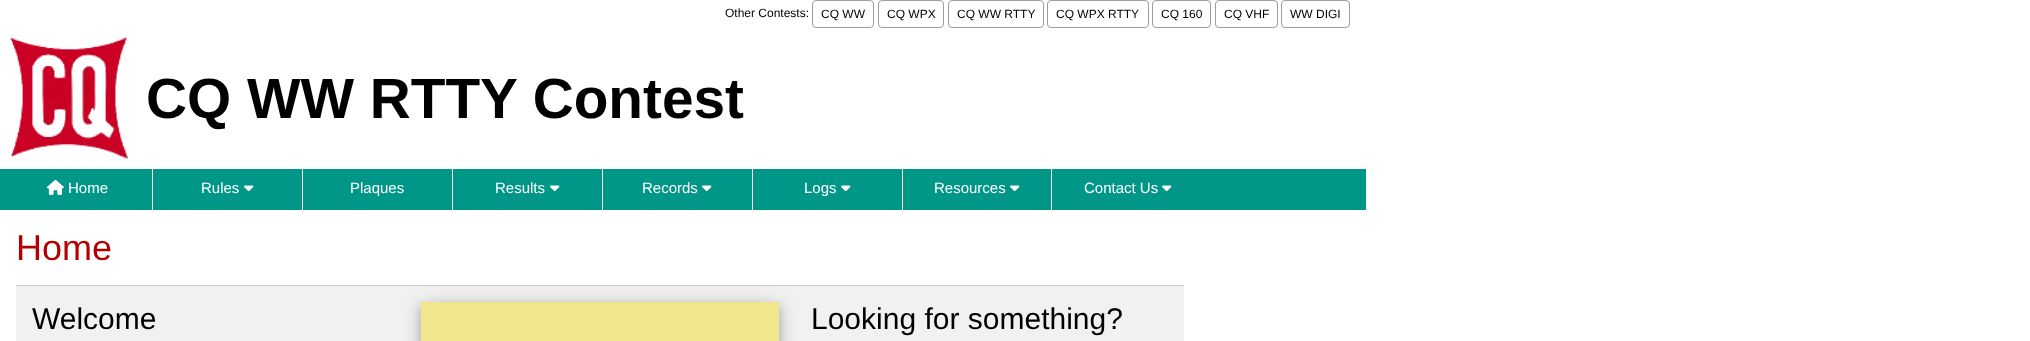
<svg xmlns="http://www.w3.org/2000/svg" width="2030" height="341">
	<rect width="100%" height="100%" fill="#FFFFFF" />
	<text x="725" y="17" font-family="Liberation Sans" font-size="12" fill="#000000">Other Contests:</text>
	<rect x="812.5" y="0.5" width="61" height="27" rx="3.5" fill="none" stroke="#9E9E9E" />
	<text x="821" y="18" font-family="Liberation Sans" font-size="12" fill="#000000">CQ WW</text>
	<rect x="878.5" y="0.5" width="65" height="27" rx="3.5" fill="none" stroke="#9E9E9E" />
	<text x="887" y="18" font-family="Liberation Sans" font-size="12" fill="#000000">CQ WPX</text>
	<rect x="948.5" y="0.5" width="95" height="27" rx="3.5" fill="none" stroke="#9E9E9E" />
	<text x="957" y="18" font-family="Liberation Sans" font-size="12" fill="#000000">CQ WW RTTY</text>
	<rect x="1047.5" y="0.5" width="101" height="27" rx="3.5" fill="none" stroke="#9E9E9E" />
	<text x="1056" y="18" font-family="Liberation Sans" font-size="12" fill="#000000">CQ WPX RTTY</text>
	<rect x="1152.5" y="0.5" width="58" height="27" rx="3.5" fill="none" stroke="#9E9E9E" />
	<text x="1161" y="18" font-family="Liberation Sans" font-size="12" fill="#000000">CQ 160</text>
	<rect x="1215.5" y="0.5" width="62" height="27" rx="3.5" fill="none" stroke="#9E9E9E" />
	<text x="1224" y="18" font-family="Liberation Sans" font-size="12" fill="#000000">CQ VHF</text>
	<rect x="1281.5" y="0.5" width="68" height="27" rx="3.5" fill="none" stroke="#9E9E9E" />
	<text x="1290" y="18" font-family="Liberation Sans" font-size="12" fill="#000000">WW DIGI</text>
	<image x="10" y="37" width="119" height="122" href="assets/img1.png" />
	<text x="146" y="118" font-family="Liberation Sans" font-size="56.75" font-weight="700" fill="#000000">CQ WW RTTY Contest</text>
	<rect x="0" y="169" width="1366" height="41" fill="#009688" />
	<rect x="152" y="169" width="1" height="41" fill="#FFFFFF" />
	<image x="47" y="179" width="17" height="16" href="assets/img2.png" />
	<text x="68" y="193" font-family="Liberation Sans" font-size="15" fill="#FFFFFF">Home</text>
	<rect x="302" y="169" width="1" height="41" fill="#FFFFFF" />
	<text x="201" y="193" font-family="Liberation Sans" font-size="15" fill="#FFFFFF">Rules</text>
	<image x="244" y="185" width="10" height="7" href="assets/img3.png" />
	<rect x="452" y="169" width="1" height="41" fill="#FFFFFF" />
	<text x="350" y="193" font-family="Liberation Sans" font-size="15" fill="#FFFFFF">Plaques</text>
	<rect x="602" y="169" width="1" height="41" fill="#FFFFFF" />
	<text x="495" y="193" font-family="Liberation Sans" font-size="15" fill="#FFFFFF">Results</text>
	<image x="550" y="185" width="10" height="7" href="assets/img3.png" />
	<rect x="752" y="169" width="1" height="41" fill="#FFFFFF" />
	<text x="642" y="193" font-family="Liberation Sans" font-size="15" fill="#FFFFFF">Records</text>
	<image x="702" y="185" width="10" height="7" href="assets/img3.png" />
	<rect x="902" y="169" width="1" height="41" fill="#FFFFFF" />
	<text x="804" y="193" font-family="Liberation Sans" font-size="15" fill="#FFFFFF">Logs</text>
	<image x="841" y="185" width="10" height="7" href="assets/img3.png" />
	<rect x="1051" y="169" width="1" height="41" fill="#FFFFFF" />
	<text x="934" y="193" font-family="Liberation Sans" font-size="15" fill="#FFFFFF">Resources</text>
	<image x="1010" y="185" width="10" height="7" href="assets/img3.png" />
	<text x="1084" y="193" font-family="Liberation Sans" font-size="15" fill="#FFFFFF">Contact Us</text>
	<image x="1162" y="185" width="10" height="7" href="assets/img3.png" />
	<rect x="16" y="285" width="1168" height="1" fill="#CCCCCC" />
	<text x="16" y="260" font-family="Liberation Sans" font-size="36" fill="#B30000">Home</text>
	<rect x="16" y="286" width="1168" height="55" fill="#F1F1F1" />
	<text x="32" y="329" font-family="Liberation Sans" font-size="30" fill="#000000">Welcome</text>
	<rect x="421" y="306" width="358" height="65" fill="#000000" fill-opacity="0.19" filter="blur(10px)" />
	<rect x="421" y="306" width="358" height="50" fill="#000000" fill-opacity="0.2" filter="blur(5px)" />
	<rect x="421" y="302" width="358" height="39" fill="#F0E68C" />
	<text x="811" y="329" font-family="Liberation Sans" font-size="30" fill="#000000">Looking for something?</text>
</svg>
